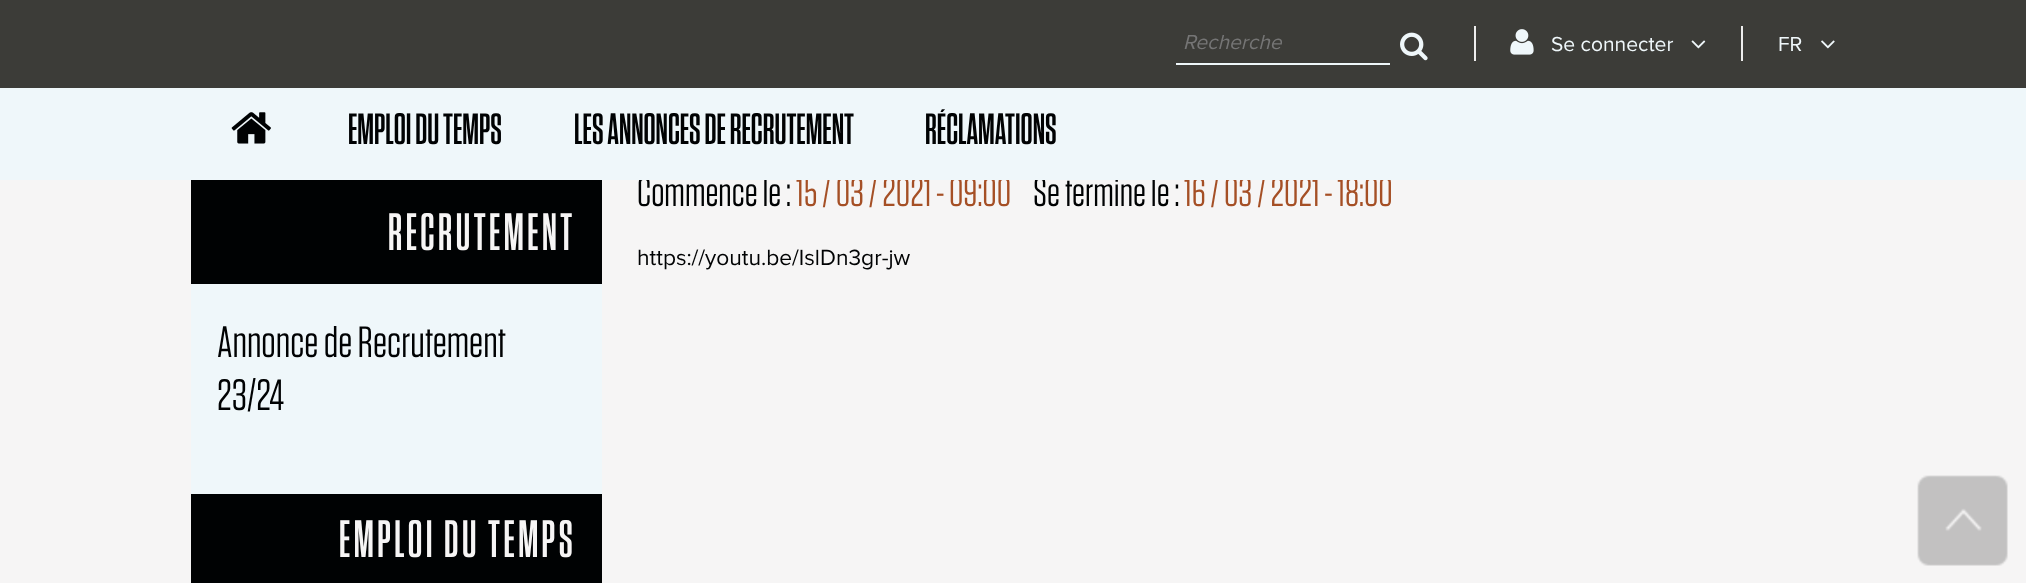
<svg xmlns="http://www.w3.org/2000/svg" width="2026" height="583">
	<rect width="100%" height="100%" fill="#F6F5F5" />
	<text x="637" y="206" font-family="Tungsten" font-size="40.25" fill="#000203">Commence le :</text>
	<text x="796" y="206" font-family="Tungsten" font-size="40.25" fill="#A54F25">15 / 03 / 2021 - 09:00</text>
	<text x="1033" y="206" font-family="Tungsten" font-size="40.25" fill="#000203">Se termine le :</text>
	<text x="1184" y="206" font-family="Tungsten" font-size="40.25" fill="#A54F25">16 / 03 / 2021 - 18:00</text>
	<rect x="0" y="88" width="2026" height="92" fill="#EFF7FA" />
	<rect x="0" y="0" width="2026" height="88" fill="#3C3C38" />
	<rect x="1176" y="63" width="214" height="2" fill="#EFF7FA" />
	<text x="1183" y="49" font-family="Proxima Nova" font-size="21" font-style="italic" fill="#757575">Recherche</text>
	<image x="1400" y="32" width="28" height="29" href="assets/img1.png" />
	<rect x="1474" y="26" width="2" height="35" fill="#EDEDED" />
	<image x="1510" y="29" width="24" height="26" href="assets/img2.png" />
	<text x="1551" y="51" font-family="Proxima Nova" font-size="21" fill="#EFF7FA">Se connecter</text>
	<image x="1691" y="40" width="15" height="9" href="assets/img3.png" />
	<rect x="1741" y="26" width="2" height="35" fill="#EDEDED" />
	<text x="1778" y="51" font-family="Proxima Nova" font-size="21" fill="#EFF7FA">FR</text>
	<image x="1821" y="40" width="14" height="9" href="assets/img4.png" />
	<image x="231" y="112" width="40" height="32" href="assets/img5.png" />
	<g font-family="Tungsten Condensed" font-size="43.75" font-weight="600" fill="#000203">
		<text x="348" y="144">EMPLOI DU TEMPS</text>
		<text x="574" y="144">LES ANNONCES DE RECRUTEMENT</text>
		<text x="925" y="144">RÉCLAMATIONS</text>
	</g>
	<rect x="191" y="284" width="411" height="210" fill="#EFF7FA" />
	<rect x="191" y="180" width="411" height="104" fill="#000203" />
	<text x="388" y="250" font-family="Tungsten Condensed" font-size="52.5" font-weight="600" letter-spacing="3.5" fill="#F6F5F5">RECRUTEMENT</text>
	<g font-family="Tungsten" font-size="43.75" fill="#000203">
		<text x="217" y="357">Annonce de Recrutement</text>
		<text x="217" y="410">23/24</text>
	</g>
	<rect x="191" y="494" width="411" height="89" fill="#000203" />
	<text x="339" y="557" font-family="Tungsten Condensed" font-size="52.5" font-weight="600" letter-spacing="3.5" fill="#F6F5F5">EMPLOI DU TEMPS</text>
	<text x="637" y="265" font-family="Proxima Nova" font-size="22.75" fill="#000203">https://youtu.be/IslDn3gr-jw</text>
	<image x="1917" y="475" width="91" height="91" href="assets/img6.png" />
</svg>
